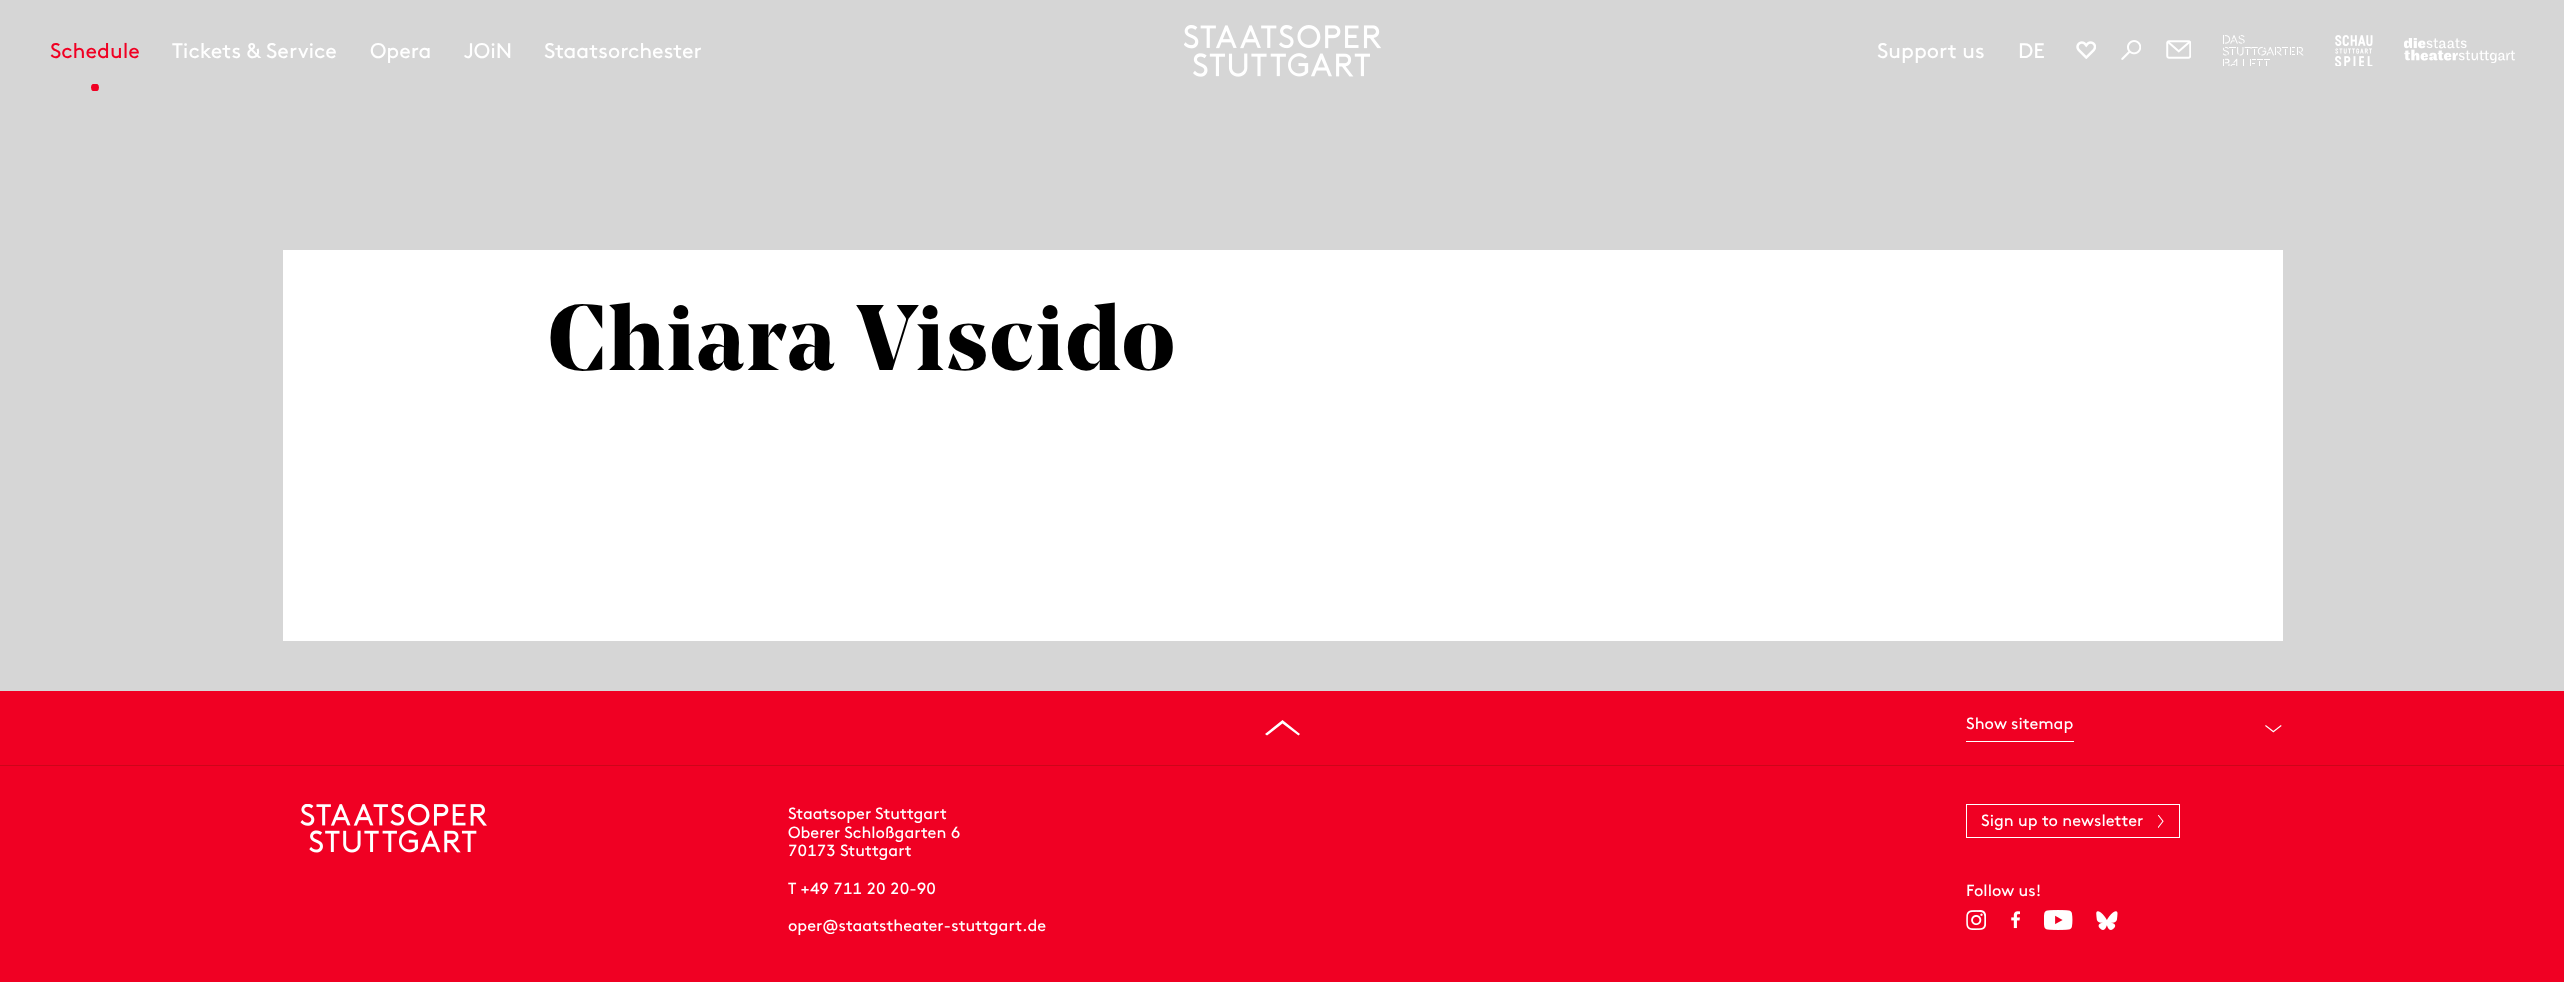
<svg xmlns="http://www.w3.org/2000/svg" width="2564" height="982">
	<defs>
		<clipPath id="clip1"><rect x="91" y="84" width="8" height="7" /></clipPath>
	</defs>
	<rect width="100%" height="100%" fill="#D6D6D6" />
	<text x="50" y="58" font-family="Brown" font-size="21.25" fill="#F00023">Schedule</text>
	<g clip-path="url(#clip1)">
		<circle cx="95" cy="87.5" r="4" fill="#F00023" />
	</g>
	<g font-family="Brown" font-size="21.25" fill="#FFFFFF">
		<text x="172" y="58">Tickets &amp; Service</text>
		<text x="370" y="58">Opera</text>
		<text x="464" y="58">JOiN</text>
		<text x="544" y="58">Staatsorchester</text>
	</g>
	<image x="1184" y="25" width="197" height="52" href="assets/img1.png" />
	<g font-family="Brown" font-size="21.25" fill="#FFFFFF">
		<text x="1877" y="58">Support us</text>
		<text x="2018" y="58">DE</text>
	</g>
	<image x="2076" y="41" width="20" height="18" href="assets/img2.png" />
	<image x="2121" y="40" width="20" height="20" href="assets/img3.png" />
	<image x="2166" y="40" width="25" height="19" href="assets/img4.png" />
	<image x="2223" y="35" width="81" height="31" href="assets/img5.png" />
	<image x="2335" y="35" width="38" height="31" href="assets/img6.png" />
	<image x="2404" y="38" width="111" height="25" href="assets/img7.png" />
	<rect x="283" y="250" width="2000" height="391" fill="#FFFFFF" />
	<text x="548" y="370" font-family="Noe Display" font-size="92.5" font-weight="700" letter-spacing="1.9" fill="#000000">Chiara Viscido</text>
	<rect x="0" y="691" width="2564" height="291" fill="#F00023" />
	<path d="M1300 734L1298.5 735.5L1282.5 723.5L1267 735.5L1265 734L1282.5 720Z" fill="#FFFFFF" />
	<rect x="1966" y="741" width="108" height="1" fill="#FFFFFF" />
	<text x="1966" y="729" font-family="Brown" font-size="16.25" fill="#FFFFFF">Show sitemap</text>
	<image x="2265" y="725" width="17" height="8" href="assets/img8.png" />
	<rect x="0" y="765" width="2564" height="1" fill="#CD0519" />
	<image x="300" y="804" width="187" height="49" href="assets/img9.png" />
	<g font-family="Brown" font-size="16.25" fill="#FFFFFF">
		<text x="788" y="819">Staatsoper Stuttgart</text>
		<text x="788" y="838">Oberer Schloßgarten 6</text>
	</g>
	<g font-family="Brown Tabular" font-size="16.25" fill="#FFFFFF">
		<text x="788" y="856">70173 Stuttgart</text>
		<text x="788" y="894">T +49 711 20 20-90</text>
	</g>
	<text x="788" y="931" font-family="Brown" font-size="16.25" fill="#FFFFFF">oper@staatstheater-stuttgart.de</text>
	<rect x="1966.5" y="804.5" width="213" height="33" fill="none" stroke="#FFFFFF" />
	<text x="1981" y="826" font-family="Brown" font-size="16.25" fill="#FFFFFF">Sign up to newsletter</text>
	<image x="2158" y="815" width="6" height="13" href="assets/img10.png" />
	<text x="1966" y="896" font-family="Brown" font-size="16.25" fill="#FFFFFF">Follow us!</text>
	<image x="1966" y="910" width="20" height="20" href="assets/img11.png" />
	<image x="2011" y="911" width="9" height="18" href="assets/img12.png" />
	<image x="2044" y="910" width="29" height="20" href="assets/img13.png" />
	<image x="2096" y="911" width="22" height="19" href="assets/img14.png" />
</svg>
